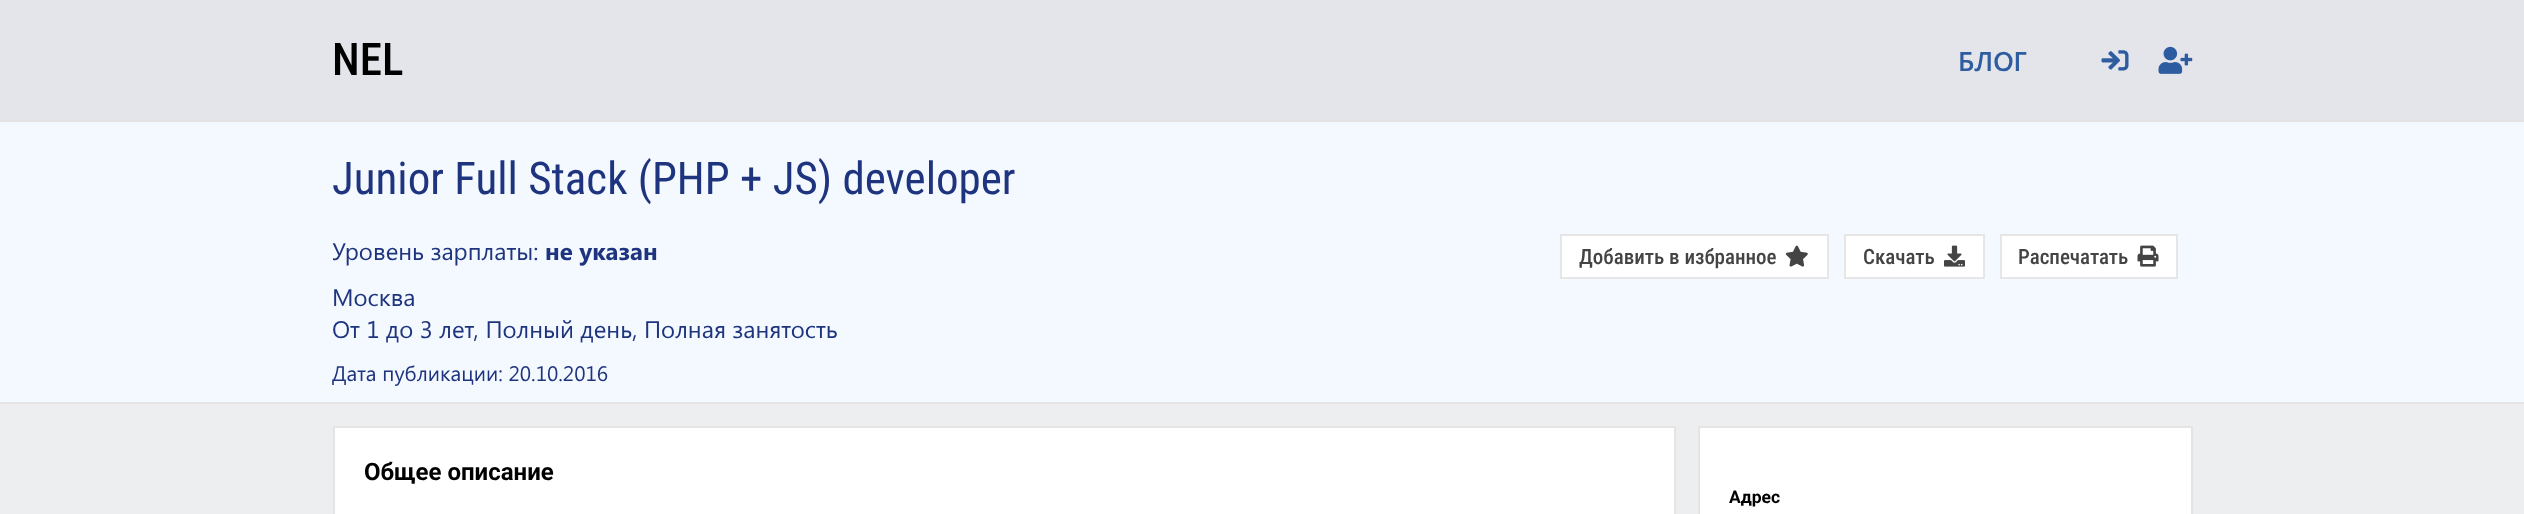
<svg xmlns="http://www.w3.org/2000/svg" width="2524" height="514">
	<defs>
		<clipPath id="clip1"><rect x="365" y="458" width="1279" height="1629" /></clipPath>
	</defs>
	<rect width="100%" height="100%" fill="#EDEEF0" />
	<rect x="0" y="0" width="2524" height="120" fill="#E3E5EA" />
	<rect x="0" y="120" width="2524" height="2" fill="#E4E4E4" />
	<text x="332" y="75" font-family="Roboto Condensed" font-size="45" font-weight="500" fill="#000000">NEL</text>
	<text x="1958" y="71" font-family="Segoe UI" font-size="27" font-weight="600" fill="#2E5CA1">БЛОГ</text>
	<image x="2101" y="50" width="28" height="21" href="assets/img1.png" />
	<image x="2158" y="46" width="35" height="28" href="assets/img2.png" />
	<rect x="0" y="122" width="2524" height="280" fill="#F3F9FF" />
	<rect x="0" y="402" width="2524" height="2" fill="#E4E4E4" />
	<text x="332" y="194" font-family="Roboto Condensed" font-size="45" fill="#1F347E">Junior Full Stack (PHP + JS) developer</text>
	<text x="332" y="260" font-family="Segoe UI" font-size="24" fill="#1F347E">Уровень зарплаты:</text>
	<text x="545" y="260" font-family="Segoe UI" font-size="24" font-weight="700" fill="#1F347E">не указан</text>
	<rect x="1561" y="235" width="267" height="43" fill="#FFFFFF" stroke="#E6E6E6" stroke-width="2" />
	<text x="1579" y="264" font-family="Roboto Condensed" font-size="21" font-weight="500" fill="#444444">Добавить в избранное</text>
	<image x="1785" y="245" width="23" height="22" href="assets/img3.png" />
	<rect x="1845" y="235" width="139" height="43" fill="#FFFFFF" stroke="#E6E6E6" stroke-width="2" />
	<text x="1863" y="264" font-family="Roboto Condensed" font-size="21" font-weight="500" fill="#444444">Скачать</text>
	<image x="1944" y="245" width="21" height="22" href="assets/img4.png" />
	<rect x="2001" y="235" width="176" height="43" fill="#FFFFFF" stroke="#E6E6E6" stroke-width="2" />
	<text x="2018" y="264" font-family="Roboto Condensed" font-size="21" font-weight="500" fill="#444444">Распечатать</text>
	<image x="2137" y="245" width="22" height="22" href="assets/img5.png" />
	<g font-family="Segoe UI" font-size="24" fill="#1F347E">
		<text x="332" y="306">Москва</text>
		<text x="332" y="338">От 1 до 3 лет, Полный день, Полная занятость</text>
	</g>
	<text x="332" y="381" font-family="Segoe UI" font-size="21" fill="#1F347E">Дата публикации: 20.10.2016</text>
	<rect x="334" y="427" width="1341" height="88" fill="#FFFFFF" stroke="#E4E4E4" stroke-width="2" />
	<g clip-path="url(#clip1)">
		<text x="364" y="480" font-family="Roboto" font-size="24" font-weight="700" fill="#000000">Общее описание</text>
	</g>
	<rect x="1699" y="427" width="493" height="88" fill="#FFFFFF" stroke="#E4E4E4" stroke-width="2" />
	<text x="1729" y="503" font-family="Roboto" font-size="17.5" font-weight="700" fill="#000000">Адрес</text>
</svg>
